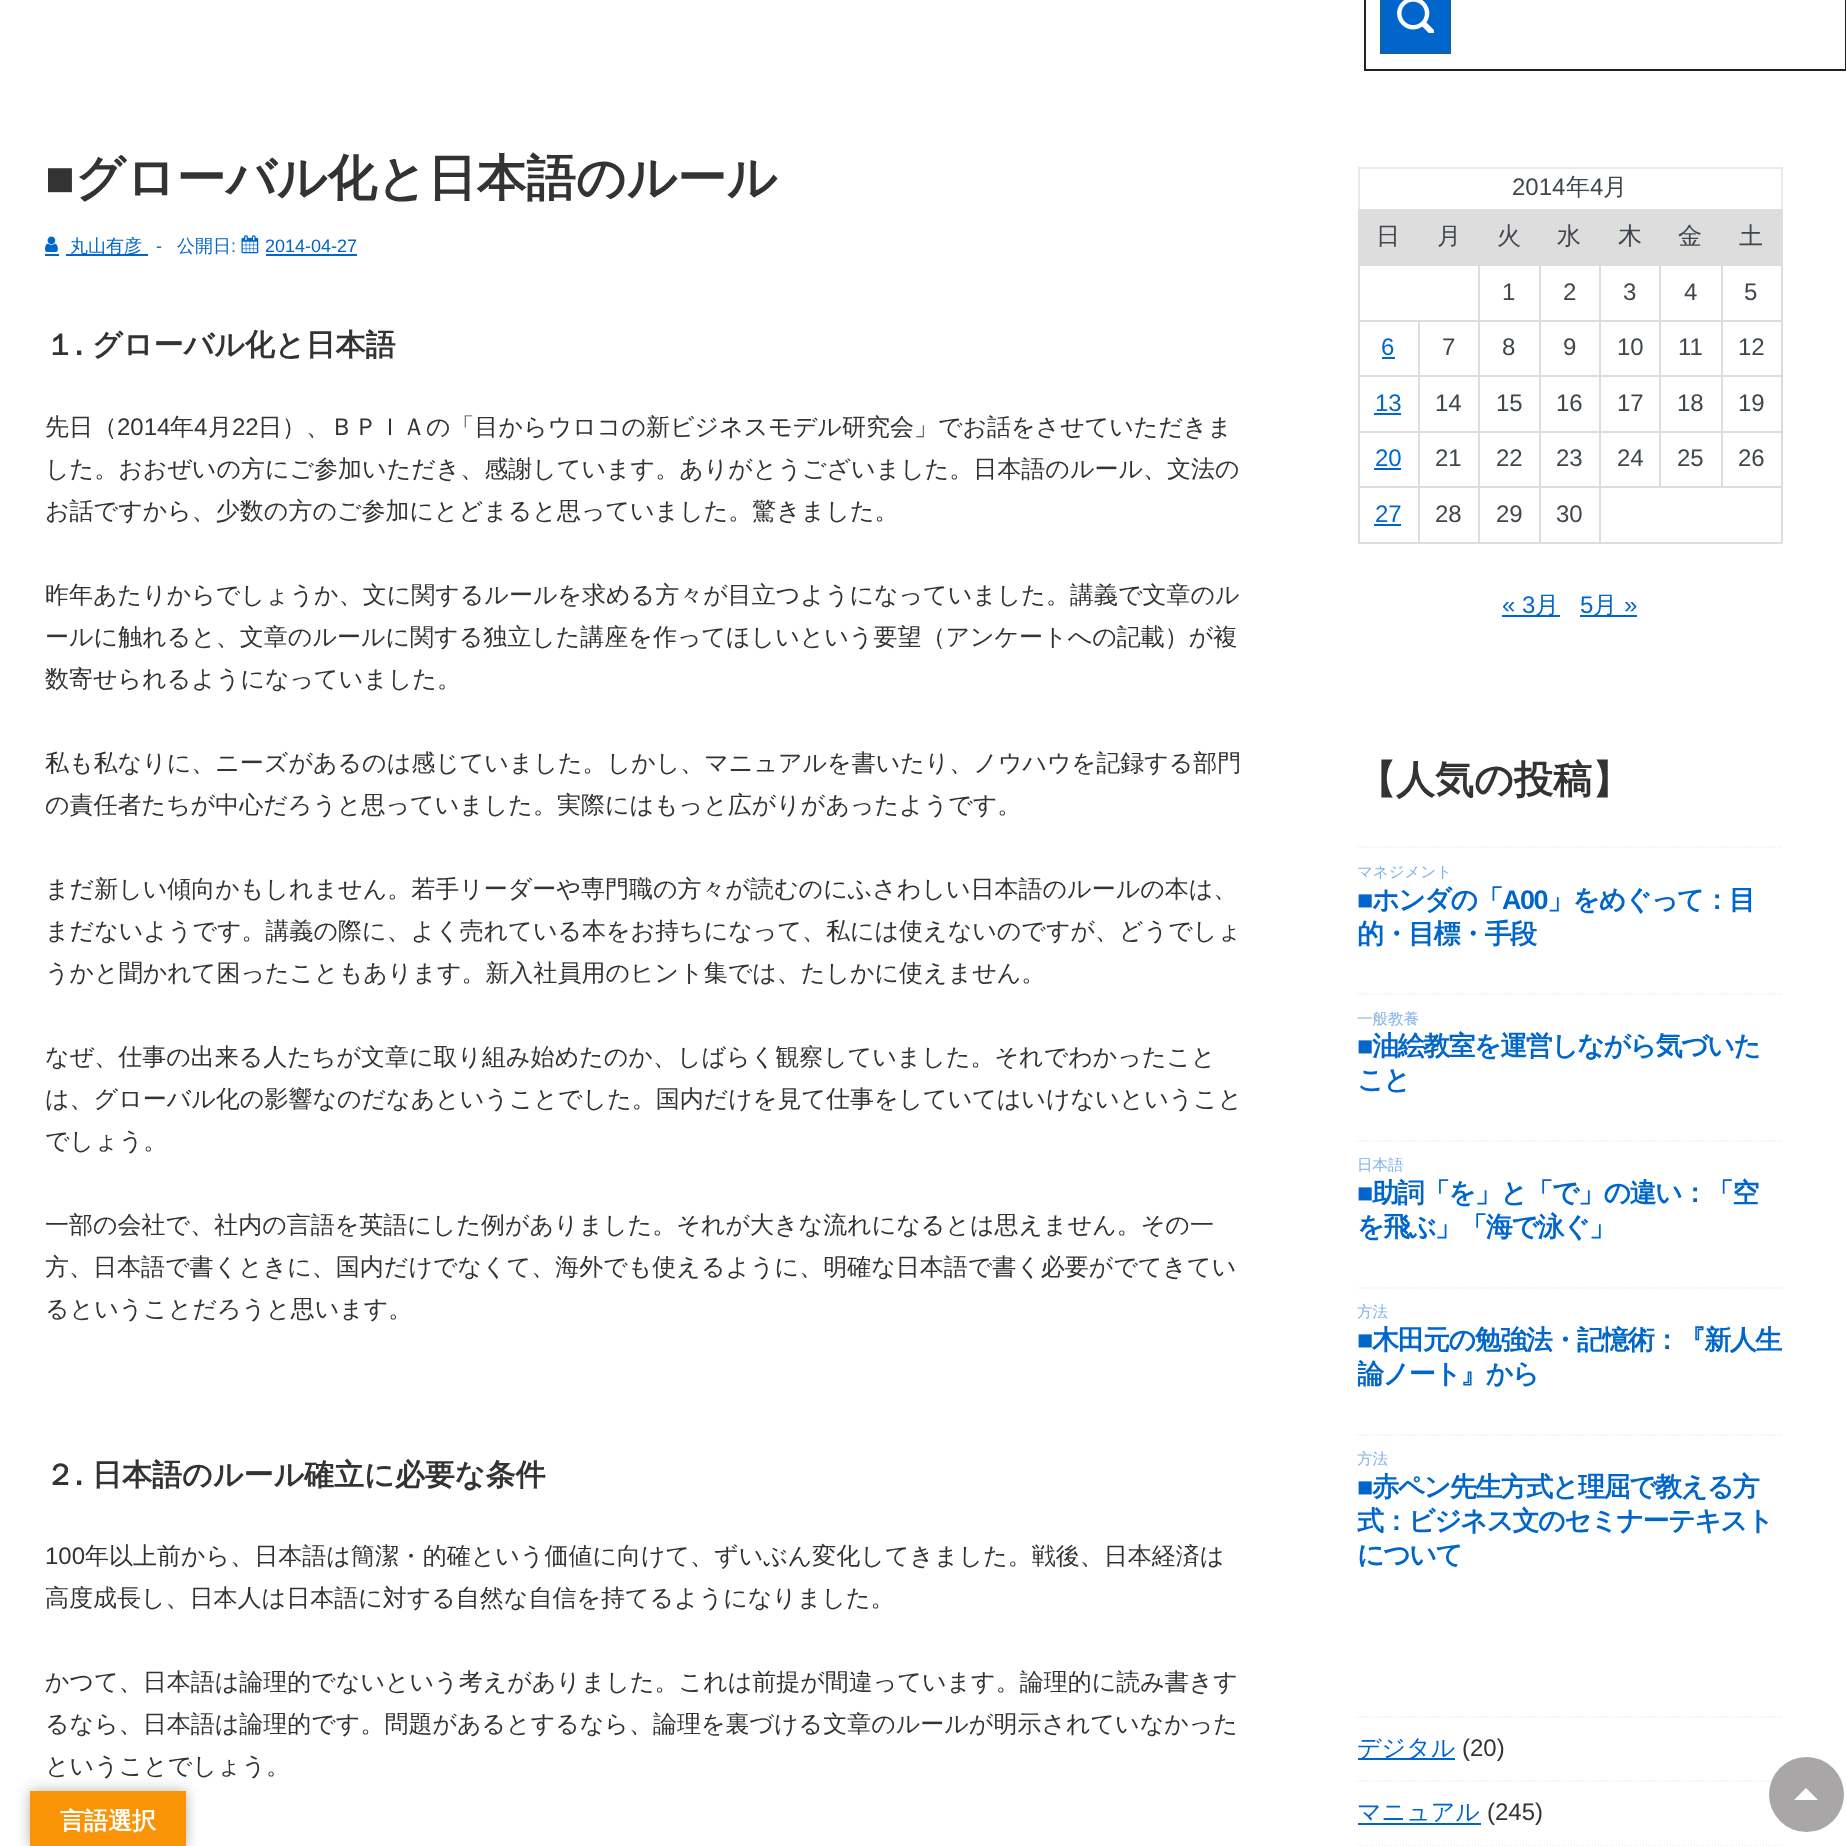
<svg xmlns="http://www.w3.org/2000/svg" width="1846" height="1846">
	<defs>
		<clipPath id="clip1"><rect x="1358" y="1289" width="424" height="117" /></clipPath>
	</defs>
	<rect width="100%" height="100%" fill="#FFFFFF" />
	<rect x="1365" y="-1" width="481" height="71" fill="none" stroke="#252121" stroke-width="2" />
	<rect x="1381" y="-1" width="69" height="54" fill="#0066CC" stroke="#10659C" stroke-width="2" />
	<image x="1397" y="0" width="37" height="33" href="assets/img1.png" />
	<text x="45" y="195" font-family="Liberation Sans" font-size="49.5" font-weight="700" fill="#333333">■</text>
	<text x="75" y="195" font-family="WenQuanYi Zen Hei" font-size="49.5" font-weight="700" fill="#333333">グローバル化と日本語のルール</text>
	<image x="45" y="236" width="13" height="16" href="assets/img2.png" />
	<rect x="66" y="254" width="82" height="2" fill="#0066CC" />
	<text x="70" y="252" font-family="WenQuanYi Zen Hei" font-size="18" font-weight="500" fill="#0066CC">丸山有彦</text>
	<rect x="45" y="254" width="14" height="2" fill="#0066CC" />
	<text x="156" y="252" font-family="Liberation Sans" font-size="18" fill="#0066CC">-</text>
	<text x="177" y="252" font-family="WenQuanYi Zen Hei" font-size="18" font-weight="500" fill="#0066CC">公開日</text>
	<text x="231" y="252" font-family="Liberation Sans" font-size="18" fill="#0066CC">:</text>
	<image x="241" y="235" width="18" height="19" href="assets/img3.png" />
	<text x="265" y="252" font-family="Liberation Sans" font-size="18" fill="#0066CC">2014-04-27</text>
	<rect x="266" y="254" width="91" height="2" fill="#0066CC" />
	<text x="45" y="355" font-family="WenQuanYi Zen Hei" font-size="30" font-weight="700" fill="#333333">１</text>
	<text x="75" y="355" font-family="Liberation Sans" font-size="30" font-weight="700" fill="#333333">.</text>
	<text x="92" y="355" font-family="WenQuanYi Zen Hei" font-size="30" font-weight="700" fill="#333333">グローバル化と日本語</text>
	<text x="45" y="435" font-family="WenQuanYi Zen Hei" font-size="24" font-weight="500" fill="#333333">先日（</text>
	<text x="117" y="435" font-family="Liberation Sans" font-size="24" fill="#333333">2014</text>
	<text x="170" y="435" font-family="WenQuanYi Zen Hei" font-size="24" font-weight="500" fill="#333333">年</text>
	<text x="194" y="435" font-family="Liberation Sans" font-size="24" fill="#333333">4</text>
	<text x="208" y="435" font-family="WenQuanYi Zen Hei" font-size="24" font-weight="500" fill="#333333">月</text>
	<text x="232" y="435" font-family="Liberation Sans" font-size="24" fill="#333333">22</text>
	<g font-family="WenQuanYi Zen Hei" font-size="24" font-weight="500" fill="#333333">
		<text x="258" y="435">日）、ＢＰＩＡの「目からウロコの新ビジネスモデル研究会」でお話をさせていただきま</text>
		<text x="45" y="477">した。おおぜいの方にご参加いただき、感謝しています。ありがとうございました。日本語のルール、文法の</text>
		<text x="45" y="519">お話ですから、少数の方のご参加にとどまると思っていました。驚きました。</text>
		<text x="45" y="603">昨年あたりからでしょうか、文に関するルールを求める方々が目立つようになっていました。講義で文章のル</text>
		<text x="45" y="645">ールに触れると、文章のルールに関する独立した講座を作ってほしいという要望（アンケートへの記載）が複</text>
		<text x="45" y="687">数寄せられるようになっていました。</text>
		<text x="45" y="771">私も私なりに、ニーズがあるのは感じていました。しかし、マニュアルを書いたり、ノウハウを記録する部門</text>
		<text x="45" y="813">の責任者たちが中心だろうと思っていました。実際にはもっと広がりがあったようです。</text>
		<text x="45" y="897">まだ新しい傾向かもしれません。若手リーダーや専門職の方々が読むのにふさわしい日本語のルールの本は、</text>
		<text x="45" y="939">まだないようです。講義の際に、よく売れている本をお持ちになって、私には使えないのですが、どうでしょ</text>
		<text x="45" y="981">うかと聞かれて困ったこともあります。新入社員用のヒント集では、たしかに使えません。</text>
		<text x="45" y="1065">なぜ、仕事の出来る人たちが文章に取り組み始めたのか、しばらく観察していました。それでわかったこと</text>
		<text x="45" y="1107">は、グローバル化の影響なのだなあということでした。国内だけを見て仕事をしていてはいけないということ</text>
		<text x="45" y="1149">でしょう。</text>
		<text x="45" y="1233">一部の会社で、社内の言語を英語にした例がありました。それが大きな流れになるとは思えません。その一</text>
		<text x="45" y="1275">方、日本語で書くときに、国内だけでなくて、海外でも使えるように、明確な日本語で書く必要がでてきてい</text>
		<text x="45" y="1317">るということだろうと思います。</text>
	</g>
	<text x="45" y="1485" font-family="WenQuanYi Zen Hei" font-size="30" font-weight="700" fill="#333333">２</text>
	<text x="75" y="1485" font-family="Liberation Sans" font-size="30" font-weight="700" fill="#333333">.</text>
	<text x="92" y="1485" font-family="WenQuanYi Zen Hei" font-size="30" font-weight="700" fill="#333333">日本語のルール確立に必要な条件</text>
	<text x="45" y="1564" font-family="Liberation Sans" font-size="24" fill="#333333">100</text>
	<g font-family="WenQuanYi Zen Hei" font-size="24" font-weight="500" fill="#333333">
		<text x="85" y="1564">年以上前から、日本語は簡潔・的確という価値に向けて、ずいぶん変化してきました。戦後、日本経済は</text>
		<text x="45" y="1606">高度成長し、日本人は日本語に対する自然な自信を持てるようになりました。</text>
		<text x="45" y="1690">かつて、日本語は論理的でないという考えがありました。これは前提が間違っています。論理的に読み書きす</text>
		<text x="45" y="1732">るなら、日本語は論理的です。問題があるとするなら、論理を裏づける文章のルールが明示されていなかった</text>
		<text x="45" y="1774">ということでしょう。</text>
	</g>
	<rect x="1358" y="167" width="424" height="2" fill="#EAEAEA" />
	<rect x="1781" y="167" width="2" height="42" fill="#EAEAEA" />
	<rect x="1358" y="167" width="2" height="42" fill="#EAEAEA" />
	<text x="1512" y="195" font-family="Liberation Sans" font-size="24" fill="#40464D">2014</text>
	<text x="1566" y="195" font-family="WenQuanYi Zen Hei" font-size="24" font-weight="500" fill="#40464D">年</text>
	<text x="1590" y="195" font-family="Liberation Sans" font-size="24" fill="#40464D">4</text>
	<text x="1603" y="195" font-family="WenQuanYi Zen Hei" font-size="24" font-weight="500" fill="#40464D">月</text>
	<rect x="1360" y="211" width="59" height="53" fill="#DDDDDD" />
	<rect x="1358" y="209" width="61" height="2" fill="#DDDDDD" />
	<rect x="1721" y="264" width="61" height="2" fill="#DDDDDD" />
	<rect x="1721" y="320" width="61" height="2" fill="#DDDDDD" />
	<rect x="1721" y="375" width="61" height="2" fill="#DDDDDD" />
	<rect x="1721" y="431" width="61" height="2" fill="#DDDDDD" />
	<rect x="1599" y="486" width="183" height="2" fill="#DDDDDD" />
	<rect x="1721" y="431" width="2" height="57" fill="#DDDDDD" />
	<rect x="1659" y="431" width="63" height="2" fill="#DDDDDD" />
	<rect x="1721" y="375" width="2" height="57" fill="#DDDDDD" />
	<rect x="1659" y="375" width="63" height="2" fill="#DDDDDD" />
	<rect x="1721" y="320" width="2" height="57" fill="#DDDDDD" />
	<rect x="1659" y="320" width="63" height="2" fill="#DDDDDD" />
	<rect x="1721" y="264" width="2" height="57" fill="#DDDDDD" />
	<rect x="1659" y="264" width="63" height="2" fill="#DDDDDD" />
	<rect x="1659" y="431" width="2" height="57" fill="#DDDDDD" />
	<rect x="1599" y="431" width="62" height="2" fill="#DDDDDD" />
	<rect x="1659" y="375" width="2" height="57" fill="#DDDDDD" />
	<rect x="1599" y="375" width="62" height="2" fill="#DDDDDD" />
	<rect x="1659" y="320" width="2" height="57" fill="#DDDDDD" />
	<rect x="1599" y="320" width="62" height="2" fill="#DDDDDD" />
	<rect x="1659" y="264" width="2" height="57" fill="#DDDDDD" />
	<rect x="1599" y="264" width="62" height="2" fill="#DDDDDD" />
	<rect x="1781" y="486" width="2" height="57" fill="#DDDDDD" />
	<rect x="1599" y="542" width="183" height="2" fill="#DDDDDD" />
	<rect x="1599" y="486" width="2" height="57" fill="#DDDDDD" />
	<rect x="1539" y="486" width="62" height="2" fill="#DDDDDD" />
	<rect x="1599" y="431" width="2" height="57" fill="#DDDDDD" />
	<rect x="1539" y="431" width="62" height="2" fill="#DDDDDD" />
	<rect x="1599" y="375" width="2" height="57" fill="#DDDDDD" />
	<rect x="1539" y="375" width="62" height="2" fill="#DDDDDD" />
	<rect x="1599" y="320" width="2" height="57" fill="#DDDDDD" />
	<rect x="1539" y="320" width="62" height="2" fill="#DDDDDD" />
	<rect x="1599" y="264" width="2" height="57" fill="#DDDDDD" />
	<rect x="1539" y="264" width="62" height="2" fill="#DDDDDD" />
	<rect x="1539" y="542" width="62" height="2" fill="#DDDDDD" />
	<rect x="1539" y="486" width="2" height="57" fill="#DDDDDD" />
	<rect x="1478" y="486" width="63" height="2" fill="#DDDDDD" />
	<rect x="1539" y="431" width="2" height="57" fill="#DDDDDD" />
	<rect x="1478" y="431" width="63" height="2" fill="#DDDDDD" />
	<rect x="1539" y="375" width="2" height="57" fill="#DDDDDD" />
	<rect x="1478" y="375" width="63" height="2" fill="#DDDDDD" />
	<rect x="1539" y="320" width="2" height="57" fill="#DDDDDD" />
	<rect x="1478" y="320" width="63" height="2" fill="#DDDDDD" />
	<rect x="1539" y="264" width="2" height="57" fill="#DDDDDD" />
	<rect x="1478" y="264" width="63" height="2" fill="#DDDDDD" />
	<rect x="1478" y="542" width="63" height="2" fill="#DDDDDD" />
	<rect x="1478" y="486" width="2" height="57" fill="#DDDDDD" />
	<rect x="1418" y="486" width="61" height="2" fill="#DDDDDD" />
	<rect x="1478" y="431" width="2" height="57" fill="#DDDDDD" />
	<rect x="1418" y="431" width="61" height="2" fill="#DDDDDD" />
	<rect x="1478" y="375" width="2" height="57" fill="#DDDDDD" />
	<rect x="1418" y="375" width="61" height="2" fill="#DDDDDD" />
	<rect x="1478" y="320" width="2" height="57" fill="#DDDDDD" />
	<rect x="1418" y="320" width="61" height="2" fill="#DDDDDD" />
	<rect x="1478" y="264" width="2" height="57" fill="#DDDDDD" />
	<rect x="1358" y="264" width="121" height="2" fill="#DDDDDD" />
	<rect x="1418" y="542" width="61" height="2" fill="#DDDDDD" />
	<rect x="1418" y="486" width="2" height="57" fill="#DDDDDD" />
	<rect x="1358" y="486" width="61" height="2" fill="#DDDDDD" />
	<rect x="1418" y="431" width="2" height="57" fill="#DDDDDD" />
	<rect x="1358" y="431" width="61" height="2" fill="#DDDDDD" />
	<rect x="1418" y="375" width="2" height="57" fill="#DDDDDD" />
	<rect x="1358" y="375" width="61" height="2" fill="#DDDDDD" />
	<rect x="1418" y="320" width="2" height="57" fill="#DDDDDD" />
	<rect x="1358" y="320" width="61" height="2" fill="#DDDDDD" />
	<rect x="1358" y="542" width="61" height="2" fill="#DDDDDD" />
	<rect x="1358" y="486" width="2" height="57" fill="#DDDDDD" />
	<rect x="1358" y="431" width="2" height="57" fill="#DDDDDD" />
	<rect x="1358" y="375" width="2" height="57" fill="#DDDDDD" />
	<rect x="1358" y="320" width="2" height="57" fill="#DDDDDD" />
	<rect x="1358" y="264" width="2" height="57" fill="#DDDDDD" />
	<rect x="1358" y="209" width="2" height="57" fill="#DDDDDD" />
	<text x="1376" y="244" font-family="WenQuanYi Zen Hei" font-size="24" font-weight="500" fill="#40464D">日</text>
	<rect x="1419" y="209" width="302" height="55" fill="#DDDDDD" />
	<g font-family="WenQuanYi Zen Hei" font-size="24" font-weight="500" fill="#40464D">
		<text x="1437" y="244">月</text>
		<text x="1497" y="244">火</text>
		<text x="1557" y="244">水</text>
		<text x="1618" y="244">木</text>
		<text x="1678" y="244">金</text>
	</g>
	<rect x="1721" y="211" width="60" height="53" fill="#DDDDDD" />
	<rect x="1721" y="209" width="61" height="2" fill="#DDDDDD" />
	<rect x="1781" y="431" width="2" height="57" fill="#DDDDDD" />
	<rect x="1781" y="375" width="2" height="57" fill="#DDDDDD" />
	<rect x="1781" y="320" width="2" height="57" fill="#DDDDDD" />
	<rect x="1781" y="264" width="2" height="57" fill="#DDDDDD" />
	<rect x="1781" y="209" width="2" height="57" fill="#DDDDDD" />
	<text x="1739" y="244" font-family="WenQuanYi Zen Hei" font-size="24" font-weight="500" fill="#40464D">土</text>
	<g font-family="Liberation Sans" font-size="24" fill="#40464D">
		<text x="1502" y="300">1</text>
		<text x="1563" y="300">2</text>
		<text x="1623" y="300">3</text>
		<text x="1684" y="300">4</text>
		<text x="1744" y="300">5</text>
	</g>
	<text x="1381" y="355" font-family="Liberation Sans" font-size="24" fill="#0066CC">6</text>
	<rect x="1382" y="357" width="13" height="2" fill="#0066CC" />
	<g font-family="Liberation Sans" font-size="24" fill="#40464D">
		<text x="1442" y="355">7</text>
		<text x="1502" y="355">8</text>
		<text x="1563" y="355">9</text>
		<text x="1617" y="355">10</text>
		<text x="1678" y="355">11</text>
		<text x="1738" y="355">12</text>
	</g>
	<text x="1375" y="411" font-family="Liberation Sans" font-size="24" fill="#0066CC">13</text>
	<rect x="1374" y="413" width="27" height="2" fill="#0066CC" />
	<g font-family="Liberation Sans" font-size="24" fill="#40464D">
		<text x="1435" y="411">14</text>
		<text x="1496" y="411">15</text>
		<text x="1556" y="411">16</text>
		<text x="1617" y="411">17</text>
		<text x="1677" y="411">18</text>
		<text x="1738" y="411">19</text>
	</g>
	<text x="1375" y="466" font-family="Liberation Sans" font-size="24" fill="#0066CC">20</text>
	<rect x="1374" y="468" width="27" height="2" fill="#0066CC" />
	<g font-family="Liberation Sans" font-size="24" fill="#40464D">
		<text x="1435" y="466">21</text>
		<text x="1496" y="466">22</text>
		<text x="1556" y="466">23</text>
		<text x="1617" y="466">24</text>
		<text x="1677" y="466">25</text>
		<text x="1738" y="466">26</text>
	</g>
	<text x="1375" y="522" font-family="Liberation Sans" font-size="24" fill="#0066CC">27</text>
	<rect x="1374" y="524" width="27" height="2" fill="#0066CC" />
	<g font-family="Liberation Sans" font-size="24" fill="#40464D">
		<text x="1435" y="522">28</text>
		<text x="1496" y="522">29</text>
		<text x="1556" y="522">30</text>
	</g>
	<text x="1502" y="613" font-family="Liberation Sans" font-size="24" fill="#0066CC">« 3</text>
	<rect x="1502" y="615" width="58" height="2" fill="#0066CC" />
	<text x="1535" y="613" font-family="WenQuanYi Zen Hei" font-size="24" font-weight="500" fill="#0066CC">月</text>
	<text x="1580" y="613" font-family="Liberation Sans" font-size="24" fill="#0066CC">5</text>
	<rect x="1580" y="615" width="57" height="2" fill="#0066CC" />
	<text x="1593" y="613" font-family="WenQuanYi Zen Hei" font-size="24" font-weight="500" fill="#0066CC">月</text>
	<text x="1624" y="613" font-family="Liberation Sans" font-size="24" fill="#0066CC">»</text>
	<text x="1357" y="793" font-family="WenQuanYi Zen Hei" font-size="39" font-weight="700" fill="#333333">【人気の投稿】</text>
	<path d="M1357.5 847H1782" fill="none" stroke="#EEEEEE" stroke-width="1.5" stroke-dasharray="1.5 1.5" />
	<text x="1357" y="877" font-family="WenQuanYi Zen Hei" font-size="15.5" font-weight="500" fill="#80B3E6">マネジメント</text>
	<text x="1357" y="909" font-family="Liberation Sans" font-size="27" font-weight="700" letter-spacing="-1.5" fill="#0066CC">■</text>
	<text x="1372" y="909" font-family="WenQuanYi Zen Hei" font-size="27" font-weight="700" letter-spacing="-1.5" fill="#0066CC">ホンダの「</text>
	<text x="1502" y="909" font-family="Liberation Sans" font-size="27" font-weight="700" letter-spacing="-1.5" fill="#0066CC">A00</text>
	<g font-family="WenQuanYi Zen Hei" font-size="27" font-weight="700" letter-spacing="-1.5" fill="#0066CC">
		<text x="1547" y="909">」をめぐって：目</text>
		<text x="1357" y="943">的・目標・手段</text>
	</g>
	<path d="M1357.5 994H1782" fill="none" stroke="#EEEEEE" stroke-width="1.5" stroke-dasharray="1.5 1.5" />
	<text x="1357" y="1024" font-family="WenQuanYi Zen Hei" font-size="15.5" font-weight="500" fill="#80B3E6">一般教養</text>
	<text x="1357" y="1055" font-family="Liberation Sans" font-size="27" font-weight="700" letter-spacing="-1.5" fill="#0066CC">■</text>
	<g font-family="WenQuanYi Zen Hei" font-size="27" font-weight="700" letter-spacing="-1.5" fill="#0066CC">
		<text x="1372" y="1055">油絵教室を運営しながら気づいた</text>
		<text x="1357" y="1089">こと</text>
	</g>
	<path d="M1357.5 1141H1782" fill="none" stroke="#EEEEEE" stroke-width="1.5" stroke-dasharray="1.5 1.5" />
	<text x="1357" y="1170" font-family="WenQuanYi Zen Hei" font-size="15.5" font-weight="500" fill="#80B3E6">日本語</text>
	<text x="1357" y="1202" font-family="Liberation Sans" font-size="27" font-weight="700" letter-spacing="-1.5" fill="#0066CC">■</text>
	<g font-family="WenQuanYi Zen Hei" font-size="27" font-weight="700" letter-spacing="-1.5" fill="#0066CC">
		<text x="1372" y="1202">助詞「を」と「で」の違い：「空</text>
		<text x="1357" y="1236">を飛ぶ」「海で泳ぐ」</text>
	</g>
	<path d="M1357.5 1288H1782" fill="none" stroke="#EEEEEE" stroke-width="1.5" stroke-dasharray="1.5 1.5" />
	<text x="1357" y="1317" font-family="WenQuanYi Zen Hei" font-size="15.5" font-weight="500" fill="#80B3E6">方法</text>
	<text x="1357" y="1349" font-family="Liberation Sans" font-size="27" font-weight="700" letter-spacing="-1.5" fill="#0066CC">■</text>
	<text x="1372" y="1349" font-family="WenQuanYi Zen Hei" font-size="27" font-weight="700" letter-spacing="-1.5" fill="#0066CC">木田元の勉強法・記憶術：『新人生</text>
	<g clip-path="url(#clip1)">
		<text x="1357" y="1383" font-family="WenQuanYi Zen Hei" font-size="27" font-weight="700" letter-spacing="-1.5" fill="#0066CC">論ノート』から</text>
	</g>
	<path d="M1357.5 1435H1782" fill="none" stroke="#EEEEEE" stroke-width="1.5" stroke-dasharray="1.5 1.5" />
	<text x="1357" y="1464" font-family="WenQuanYi Zen Hei" font-size="15.5" font-weight="500" fill="#80B3E6">方法</text>
	<text x="1357" y="1496" font-family="Liberation Sans" font-size="27" font-weight="700" letter-spacing="-1.5" fill="#0066CC">■</text>
	<g font-family="WenQuanYi Zen Hei" font-size="27" font-weight="700" letter-spacing="-1.5" fill="#0066CC">
		<text x="1372" y="1496">赤ペン先生方式と理屈で教える方</text>
		<text x="1357" y="1530">式：ビジネス文のセミナーテキスト</text>
		<text x="1357" y="1564">について</text>
	</g>
	<path d="M1357.5 1717H1782" fill="none" stroke="#EEEEEE" stroke-width="1.5" stroke-dasharray="1.5 1.5" />
	<rect x="1358" y="1758" width="97" height="2" fill="#0066CC" />
	<text x="1357" y="1756" font-family="WenQuanYi Zen Hei" font-size="24" font-weight="500" fill="#0066CC">デジタル</text>
	<text x="1462" y="1756" font-family="Liberation Sans" font-size="24" fill="#333333">(20)</text>
	<path d="M1357.5 1781H1782" fill="none" stroke="#EEEEEE" stroke-width="1.5" stroke-dasharray="1.5 1.5" />
	<text x="1357" y="1820" font-family="WenQuanYi Zen Hei" font-size="24" font-weight="500" fill="#0066CC">マニュアル</text>
	<rect x="1358" y="1823" width="123" height="2" fill="#0066CC" />
	<text x="1487" y="1820" font-family="Liberation Sans" font-size="24" fill="#333333">(245)</text>
	<path d="M1357.5 1846H1782" fill="none" stroke="#EEEEEE" stroke-width="1.5" stroke-dasharray="1.5 1.5" />
	<circle cx="1806.5" cy="1794.5" r="37.5" fill="#A8A6A6" />
	<path d="M1818 1800H1794L1806 1788Z" fill="#FFFFFF" />
	<rect x="30" y="1791" width="156" height="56" fill="#000000" fill-opacity="0.3" filter="blur(7px)" />
	<rect x="30" y="1791" width="156" height="55" fill="#F89406" />
	<text x="60" y="1829" font-family="WenQuanYi Zen Hei" font-size="24" font-weight="700" fill="#FFFFFF">言語選択</text>
</svg>
